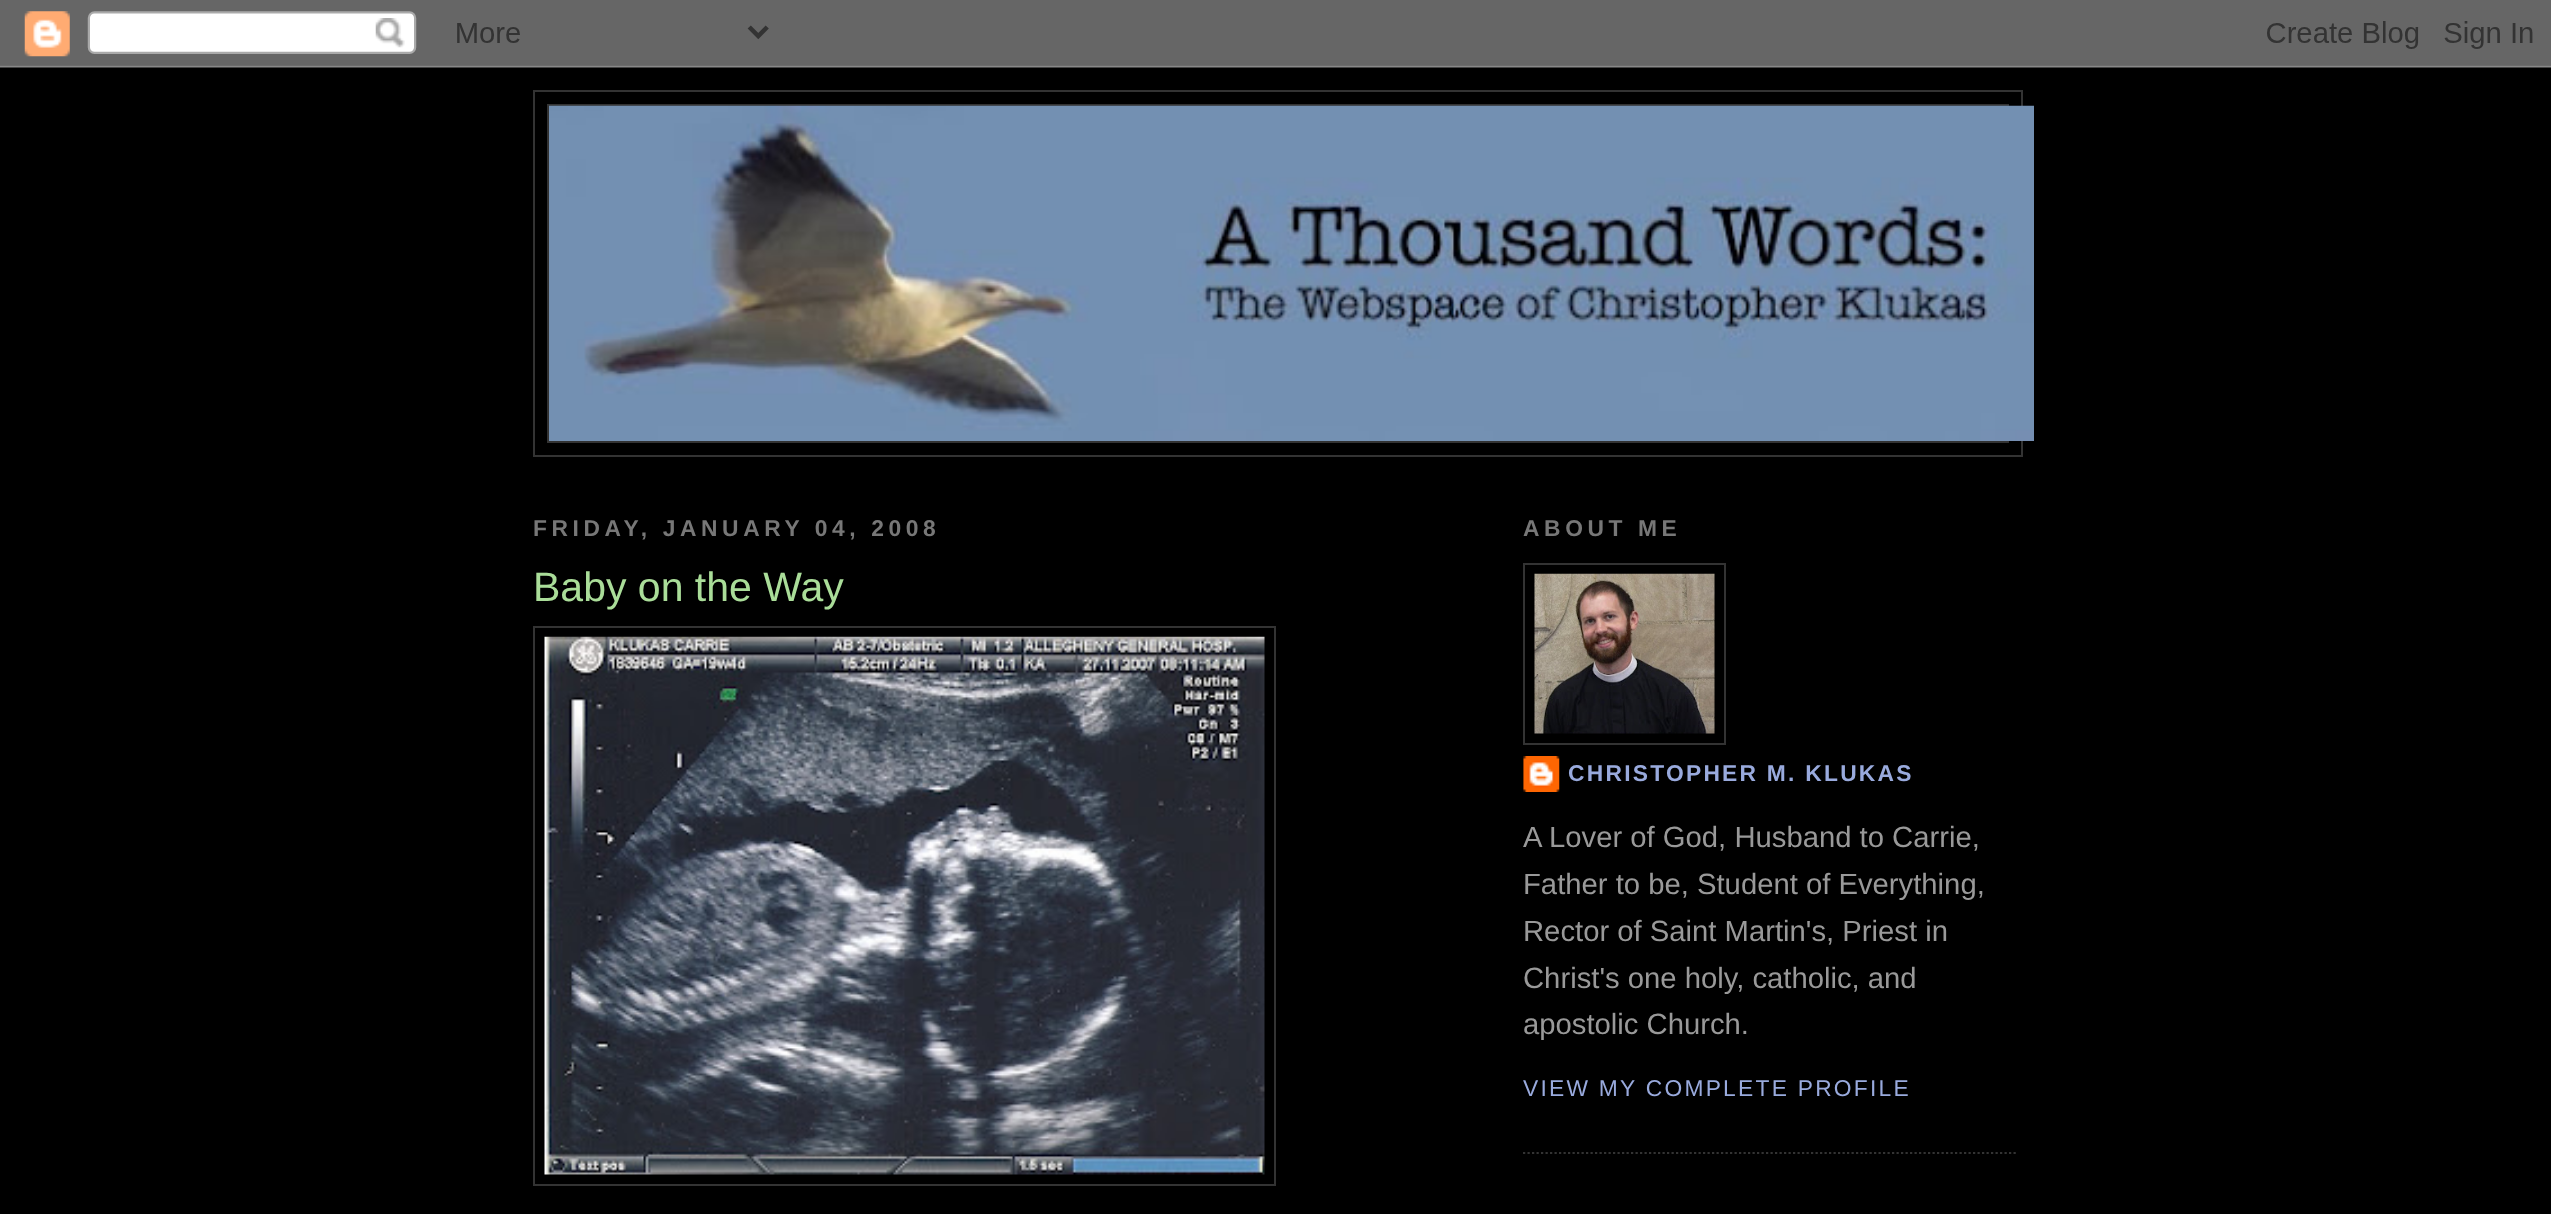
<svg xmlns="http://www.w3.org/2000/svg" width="2551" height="1214">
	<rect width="100%" height="100%" fill="#000000" />
	<image x="0" y="0" width="2551" height="68" href="assets/img1.png" />
	<rect x="534" y="91" width="1488" height="365" fill="none" stroke="#333333" stroke-width="2" />
	<rect x="548" y="105" width="1460" height="337" fill="none" stroke="#333333" stroke-width="2" />
	<image x="549" y="105" width="1485" height="336" href="assets/img2.png" />
	<text x="533" y="536" font-family="Liberation Sans" font-size="22.8" font-weight="700" letter-spacing="4.6" fill="#777777">FRIDAY, JANUARY 04, 2008</text>
	<text x="533" y="601" font-family="Liberation Sans" font-size="41" fill="#AADD99">Baby on the Way</text>
	<rect x="534" y="627" width="741" height="558" fill="none" stroke="#333333" stroke-width="2" />
	<image x="544" y="636" width="721" height="539" href="assets/img3.png" />
	<path d="M1523 1153H2018" fill="none" stroke="#333333" stroke-width="2.2" stroke-dasharray="2.25 2.25" />
	<text x="1523" y="536" font-family="Liberation Sans" font-size="22.8" font-weight="700" letter-spacing="4.6" fill="#777777">ABOUT ME</text>
	<rect x="1524" y="564" width="201" height="180" fill="none" stroke="#333333" stroke-width="2" />
	<image x="1534" y="573" width="181" height="161" href="assets/img4.png" />
	<image x="1523" y="756" width="37" height="36" href="assets/img5.png" />
	<text x="1568" y="781" font-family="Liberation Sans" font-size="22.8" font-weight="700" letter-spacing="2.25" fill="#99AADD">CHRISTOPHER M. KLUKAS</text>
	<g font-family="Liberation Sans" font-size="29.25" fill="#999999">
		<text x="1523" y="847">A Lover of God, Husband to Carrie,</text>
		<text x="1523" y="894">Father to be, Student of Everything,</text>
		<text x="1523" y="941">Rector of Saint Martin's, Priest in</text>
		<text x="1523" y="988">Christ's one holy, catholic, and</text>
		<text x="1523" y="1034">apostolic Church.</text>
	</g>
	<text x="1523" y="1096" font-family="Liberation Sans" font-size="22.8" letter-spacing="2.25" fill="#99AADD">VIEW MY COMPLETE PROFILE</text>
</svg>
